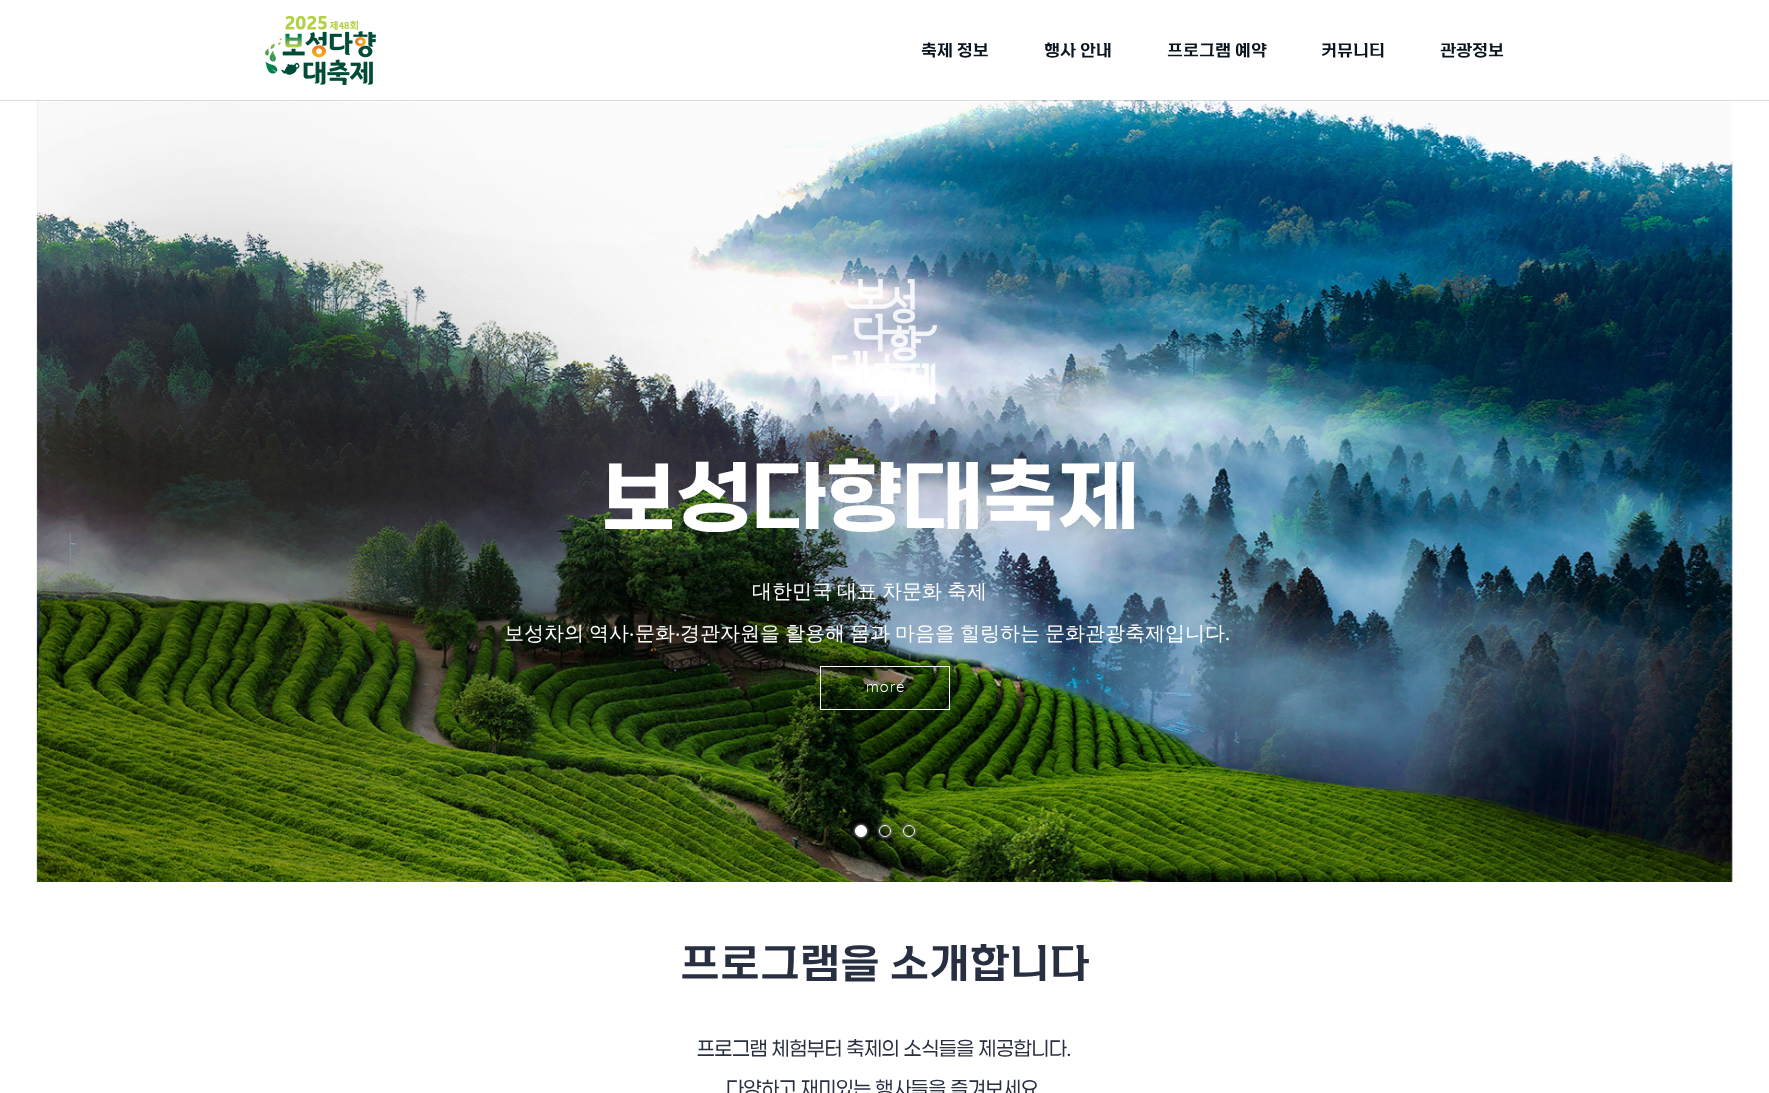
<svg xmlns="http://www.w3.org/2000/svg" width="1769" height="1093">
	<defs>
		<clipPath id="clip1"><path d="M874 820H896V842H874ZM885 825C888.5 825 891 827.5 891 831C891 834.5 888.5 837 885 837C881.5 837 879 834.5 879 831C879 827.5 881.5 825 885 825Z" clip-rule="evenodd" /></clipPath>
		<clipPath id="clip2"><path d="M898 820H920V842H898ZM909 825C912.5 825 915 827.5 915 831C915 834.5 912.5 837 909 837C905.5 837 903 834.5 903 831C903 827.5 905.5 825 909 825Z" clip-rule="evenodd" /></clipPath>
	</defs>
	<rect width="100%" height="100%" fill="#FFFFFF" />
	<image x="36" y="100" width="1697" height="782" href="assets/img2.png" />
	<rect x="0" y="1" width="1769" height="100" fill="#000000" fill-opacity="0.12" filter="blur(0.5px)" />
	<rect x="0" y="0" width="1769" height="100" fill="#FFFFFF" />
	<image x="265" y="16" width="111" height="69" href="assets/img1.png" />
	<g font-family="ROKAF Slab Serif" font-size="16" font-weight="500" fill="#0A141F">
		<text x="921" y="55">축제 정보</text>
		<text x="1044" y="55">행사 안내</text>
		<text x="1167" y="55">프로그램 예약</text>
		<text x="1321" y="55">커뮤니티</text>
		<text x="1440" y="55">관광정보</text>
	</g>
	<image x="832" y="279" width="105" height="133" href="assets/img3.png" />
	<text x="601" y="520" font-family="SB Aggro" font-size="80" fill="#FFFFFF">보성다향대축제</text>
	<g font-family="WenQuanYi Zen Hei" font-size="20" font-weight="500" fill="#FFFFFF">
		<text x="752" y="598" word-spacing="-1">대한민국 대표 차문화 축제</text>
		<text x="504" y="640" word-spacing="-1">보성차의 역사</text>
	</g>
	<text x="629" y="640" font-family="Playfair Display" font-size="20" fill="#FFFFFF">·</text>
	<text x="635" y="640" font-family="WenQuanYi Zen Hei" font-size="20" font-weight="500" fill="#FFFFFF">문화</text>
	<text x="675" y="640" font-family="Playfair Display" font-size="20" fill="#FFFFFF">·</text>
	<text x="680" y="640" word-spacing="-1" font-family="WenQuanYi Zen Hei" font-size="20" font-weight="500" fill="#FFFFFF">경관자원을 활용해 몸과 마음을 힐링하는 문화관광축제입니다</text>
	<text x="1225" y="640" font-family="Playfair Display" font-size="20" fill="#FFFFFF">.</text>
	<image x="820" y="666" width="130" height="44" href="assets/img4.png" />
	<rect x="854" y="824" width="14" height="14" rx="7" fill="#767676" filter="blur(1px)" />
	<circle cx="861" cy="831" r="5.5" fill="#FFFFFF" stroke="#FFFFFF" />
	<g clip-path="url(#clip1)">
		<rect x="878" y="824" width="14" height="14" rx="7" fill="#767676" filter="blur(1px)" />
	</g>
	<circle cx="885" cy="831" r="5.5" fill="none" stroke="#FFFFFF" />
	<g clip-path="url(#clip2)">
		<rect x="902" y="824" width="14" height="14" rx="7" fill="#767676" filter="blur(1px)" />
	</g>
	<circle cx="909" cy="831" r="5.5" fill="none" stroke="#FFFFFF" />
	<text x="680" y="975" font-family="ROKAF Slab Serif" font-size="40" font-weight="500" fill="#272F41">프로그램을 소개합니다</text>
	<g font-family="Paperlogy" font-size="20" fill="#272F41">
		<text x="697" y="1056">프로그램 체험부터 축제의 소식들을 제공합니다.</text>
		<text x="726" y="1096">다양하고 재미있는 행사들을 즐겨보세요</text>
	</g>
</svg>
